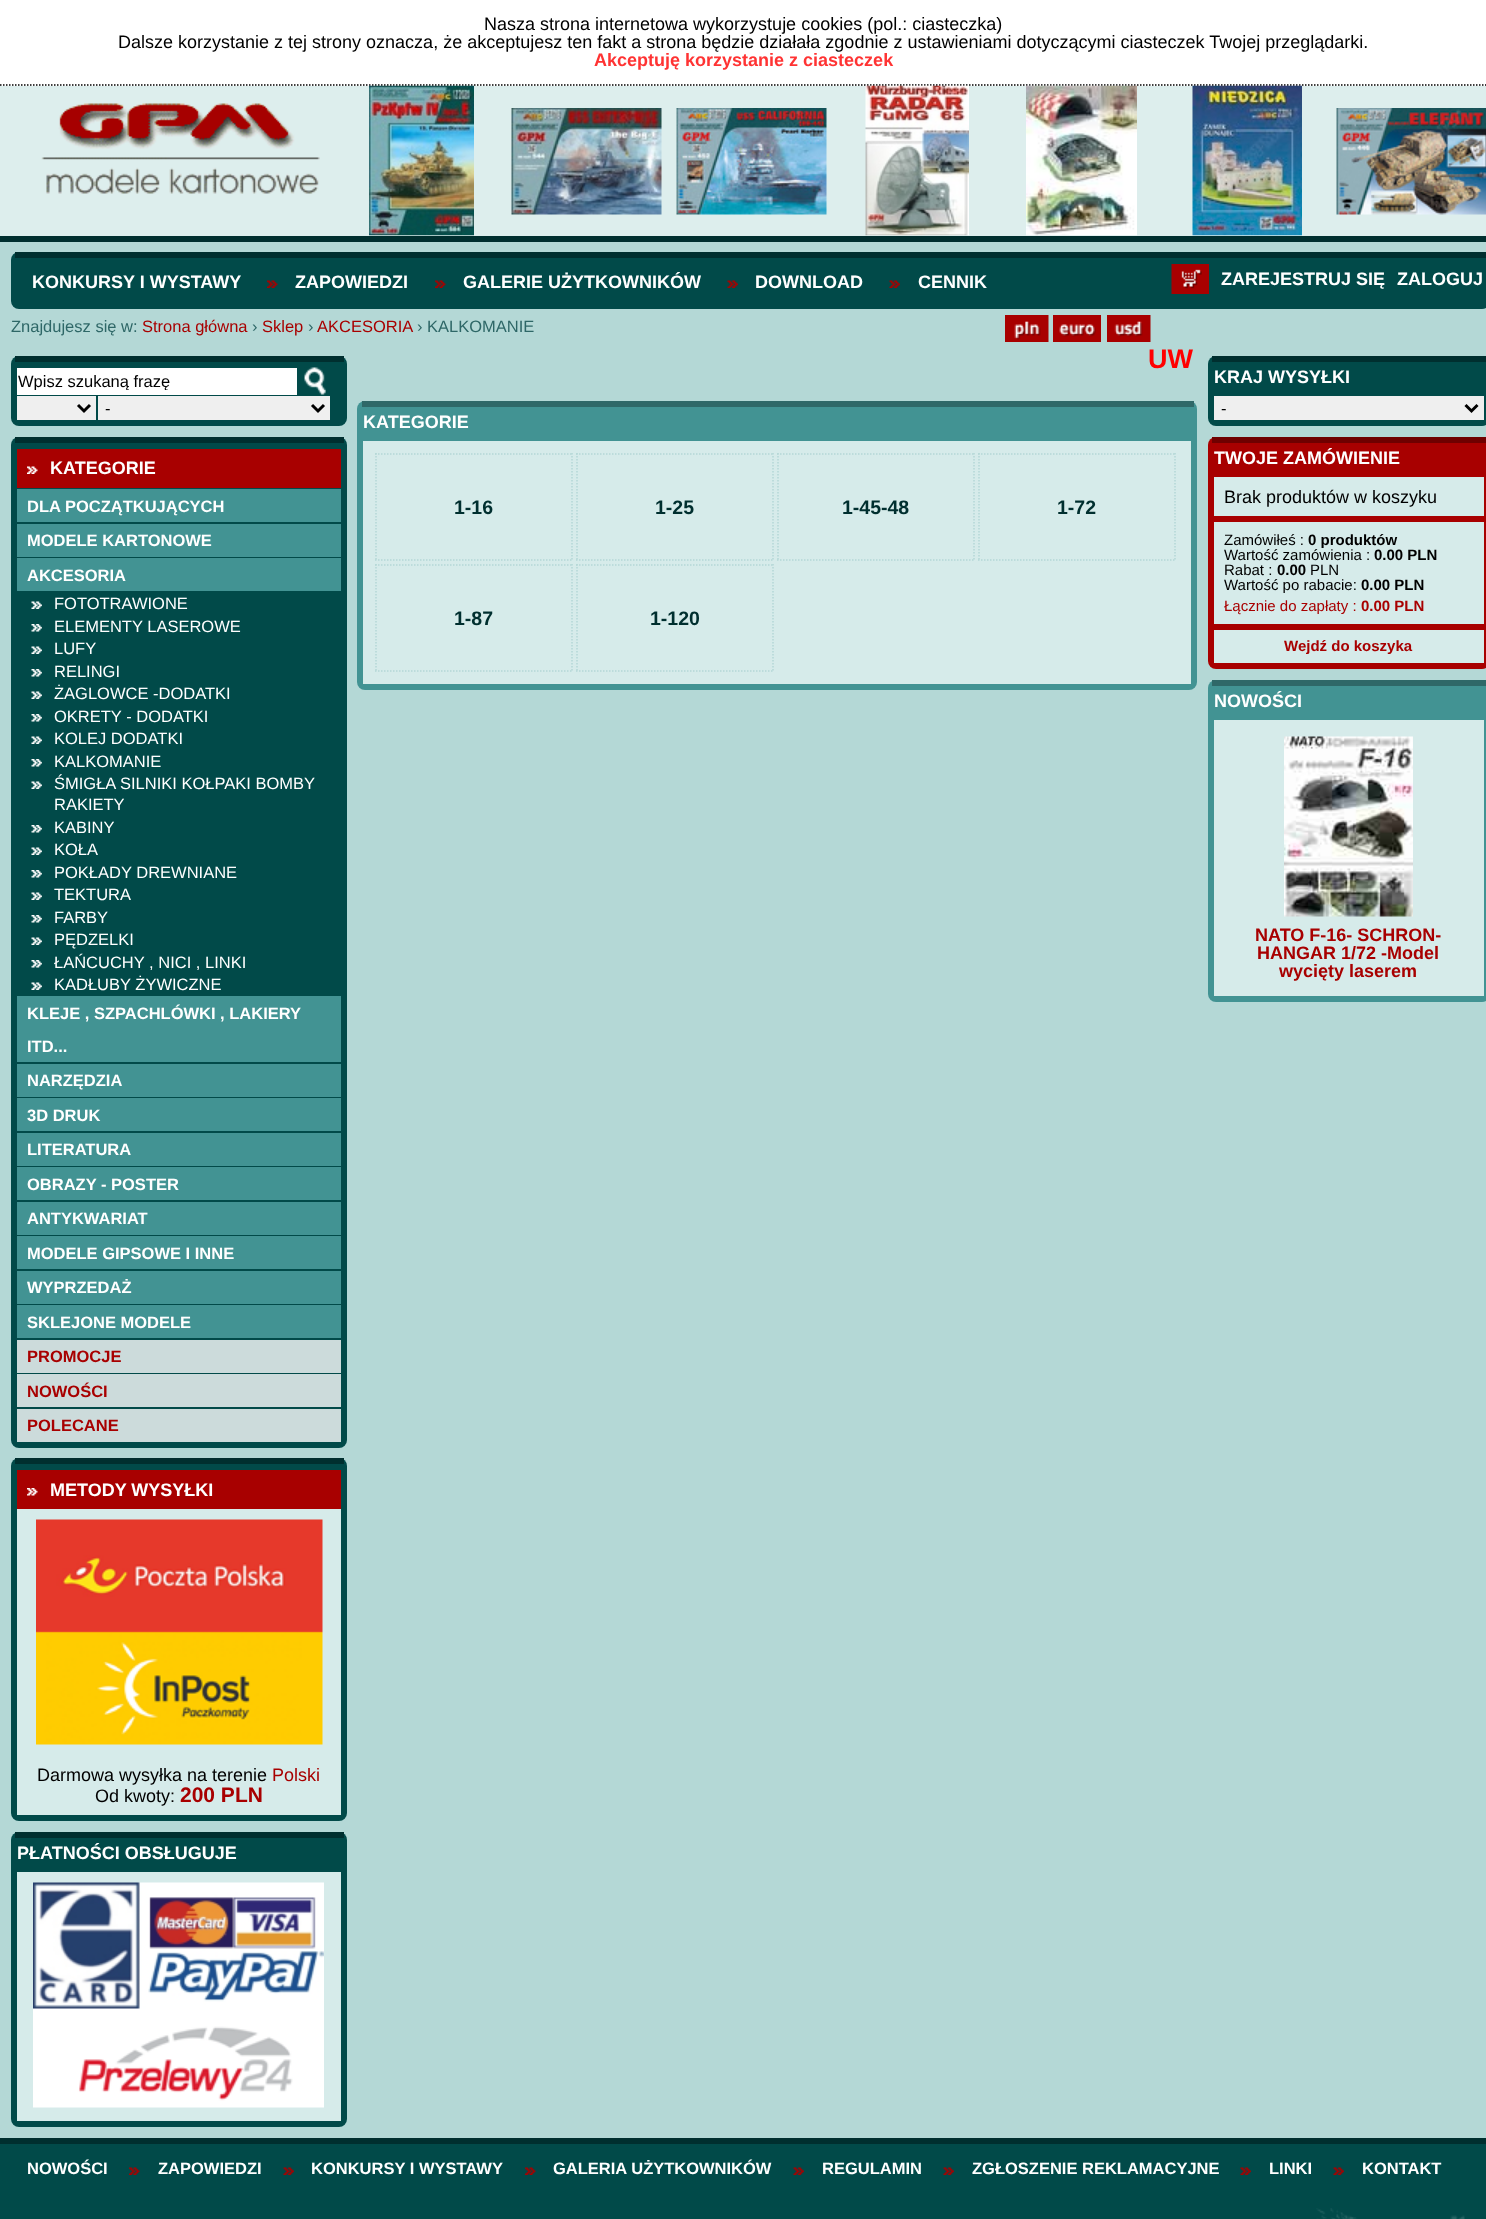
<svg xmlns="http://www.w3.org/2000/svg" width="1486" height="2219">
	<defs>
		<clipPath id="clip1"><rect x="18" y="372" width="278" height="18" /></clipPath>
	</defs>
	<rect width="100%" height="100%" fill="#FFFFFF" />
	<path d="M0 85H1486.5" fill="none" stroke="#000000" stroke-width="1.5" stroke-dasharray="1.5 1.5" />
	<g font-family="Liberation Sans" font-size="18" fill="#000000">
		<text x="484" y="30">Nasza strona internetowa wykorzystuje cookies (pol.: ciasteczka)</text>
		<text x="118" y="48">Dalsze korzystanie z tej strony oznacza, że akceptujesz ten fakt a strona będzie działała zgodnie z ustawieniami dotyczącymi ciasteczek Twojej przeglądarki.</text>
	</g>
	<text x="594" y="66" font-family="Liberation Sans" font-size="18" font-weight="700" fill="#FF3333">Akceptuję korzystanie z ciasteczek</text>
	<rect x="0" y="86" width="1486" height="150" fill="#DDEEED" />
	<rect x="0" y="236" width="1486" height="6" fill="#002F2F" />
	<image x="41" y="103" width="279" height="91" href="assets/img1.png" />
	<image x="369" y="85" width="105" height="151" href="assets/img2.png" />
	<image x="511" y="108" width="151" height="107" href="assets/img3.png" />
	<image x="676" y="108" width="151" height="107" href="assets/img4.png" />
	<image x="865" y="85" width="104" height="151" href="assets/img5.png" />
	<image x="1026" y="85" width="111" height="151" href="assets/img6.png" />
	<image x="1192" y="85" width="110" height="151" href="assets/img7.png" />
	<image x="1336" y="108" width="150" height="107" href="assets/img8.png" />
	<rect x="0" y="242" width="1486" height="1896" fill="#B4D8D6" />
	<rect x="11" y="252" width="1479" height="57" rx="8" fill="#014A49" />
	<rect x="15" y="252" width="1471" height="6" fill="#002F2F" />
	<text x="32" y="288" font-family="Liberation Sans" font-size="18" font-weight="700" fill="#FFFFFF">KONKURSY I WYSTAWY</text>
	<image x="267" y="280" width="11" height="8" href="assets/img9.png" />
	<text x="295" y="288" font-family="Liberation Sans" font-size="18" font-weight="700" fill="#FFFFFF">ZAPOWIEDZI</text>
	<image x="435" y="280" width="11" height="8" href="assets/img9.png" />
	<text x="463" y="288" font-family="Liberation Sans" font-size="18" font-weight="700" fill="#FFFFFF">GALERIE UŻYTKOWNIKÓW</text>
	<image x="727" y="280" width="11" height="8" href="assets/img10.png" />
	<text x="755" y="288" font-family="Liberation Sans" font-size="18" font-weight="700" fill="#FFFFFF">DOWNLOAD</text>
	<image x="889" y="280" width="11" height="8" href="assets/img11.png" />
	<text x="918" y="288" font-family="Liberation Sans" font-size="18" font-weight="700" fill="#FFFFFF">CENNIK</text>
	<image x="1171" y="264" width="38" height="30" href="assets/img12.png" />
	<g font-family="Liberation Sans" font-size="18" font-weight="700" fill="#FFFFFF">
		<text x="1221" y="285">ZAREJESTRUJ SIĘ</text>
		<text x="1397" y="285">ZALOGUJ</text>
	</g>
	<text x="11" y="332" font-family="Liberation Sans" font-size="16.5" fill="#2E6767">Znajdujesz się w:</text>
	<text x="142" y="332" font-family="Liberation Sans" font-size="16.5" fill="#A80000">Strona główna</text>
	<text x="252" y="332" font-family="Liberation Sans" font-size="16.5" fill="#2E6767">›</text>
	<text x="262" y="332" font-family="Liberation Sans" font-size="16.5" fill="#A80000">Sklep</text>
	<text x="308" y="332" font-family="Liberation Sans" font-size="16.5" fill="#2E6767">›</text>
	<text x="317" y="332" font-family="Liberation Sans" font-size="16.5" fill="#A80000">AKCESORIA</text>
	<text x="417" y="332" font-family="Liberation Sans" font-size="16.5" fill="#2E6767">› KALKOMANIE</text>
	<image x="1005" y="315" width="44" height="27" href="assets/img13.png" />
	<image x="1053" y="315" width="48" height="27" href="assets/img14.png" />
	<image x="1107" y="315" width="44" height="27" href="assets/img15.png" />
	<rect x="11" y="356" width="336" height="70" rx="8" fill="#014A49" />
	<rect x="15" y="356" width="329" height="6" fill="#002F2F" />
	<rect x="17" y="368" width="280" height="27" fill="#FFFFFF" />
	<g clip-path="url(#clip1)">
		<text x="18" y="387" font-family="Liberation Sans" font-size="16.5" fill="#000000">Wpisz szukaną frazę</text>
	</g>
	<image x="304" y="367" width="22" height="28" href="assets/img16.png" />
	<rect x="17" y="396" width="79" height="24" fill="#EFEFEF" />
	<path d="M78 405L84 411L90 405" fill="none" stroke="#000000" stroke-width="3" />
	<rect x="98" y="396" width="232" height="24" fill="#EFEFEF" />
	<path d="M312 405L318 411L324 405" fill="none" stroke="#000000" stroke-width="3" />
	<text x="105" y="414" font-family="Liberation Sans" font-size="16.5" fill="#000000">-</text>
	<rect x="11" y="437" width="336" height="1011" rx="8" fill="#014A49" />
	<rect x="15" y="437" width="329" height="6" fill="#002F2F" />
	<rect x="17" y="449" width="324" height="39" fill="#A80000" />
	<image x="27" y="466" width="11" height="8" href="assets/img17.png" />
	<text x="50" y="474" font-family="Liberation Sans" font-size="18" font-weight="700" fill="#FFFFFF">KATEGORIE</text>
	<rect x="17" y="489" width="324" height="33" fill="#429393" />
	<text x="27" y="512" font-family="Liberation Sans" font-size="16.5" font-weight="700" fill="#FFFFFF">DLA POCZĄTKUJĄCYCH</text>
	<rect x="17" y="524" width="324" height="33" fill="#429393" />
	<text x="27" y="546" font-family="Liberation Sans" font-size="16.5" font-weight="700" fill="#FFFFFF">MODELE KARTONOWE</text>
	<rect x="17" y="558" width="324" height="33" fill="#429393" />
	<text x="27" y="581" font-family="Liberation Sans" font-size="16.5" font-weight="700" fill="#FFFFFF">AKCESORIA</text>
	<image x="31" y="601" width="11" height="8" href="assets/img18.png" />
	<text x="54" y="609" font-family="Liberation Sans" font-size="16.5" fill="#FFFFFF">FOTOTRAWIONE</text>
	<image x="31" y="624" width="11" height="8" href="assets/img19.png" />
	<text x="54" y="632" font-family="Liberation Sans" font-size="16.5" fill="#FFFFFF">ELEMENTY LASEROWE</text>
	<image x="31" y="646" width="11" height="8" href="assets/img18.png" />
	<text x="54" y="654" font-family="Liberation Sans" font-size="16.5" fill="#FFFFFF">LUFY</text>
	<image x="31" y="669" width="11" height="8" href="assets/img19.png" />
	<text x="54" y="677" font-family="Liberation Sans" font-size="16.5" fill="#FFFFFF">RELINGI</text>
	<image x="31" y="691" width="11" height="8" href="assets/img18.png" />
	<text x="54" y="699" font-family="Liberation Sans" font-size="16.5" fill="#FFFFFF">ŻAGLOWCE -DODATKI</text>
	<image x="31" y="714" width="11" height="8" href="assets/img19.png" />
	<text x="54" y="722" font-family="Liberation Sans" font-size="16.5" fill="#FFFFFF">OKRETY - DODATKI</text>
	<image x="31" y="736" width="11" height="8" href="assets/img18.png" />
	<text x="54" y="744" font-family="Liberation Sans" font-size="16.5" fill="#FFFFFF">KOLEJ DODATKI</text>
	<image x="31" y="759" width="11" height="8" href="assets/img19.png" />
	<text x="54" y="767" font-family="Liberation Sans" font-size="16.5" fill="#FFFFFF">KALKOMANIE</text>
	<image x="31" y="781" width="11" height="8" href="assets/img18.png" />
	<g font-family="Liberation Sans" font-size="16.5" fill="#FFFFFF">
		<text x="54" y="789">ŚMIGŁA SILNIKI KOŁPAKI BOMBY</text>
		<text x="54" y="810">RAKIETY</text>
	</g>
	<image x="31" y="825" width="11" height="8" href="assets/img19.png" />
	<text x="54" y="833" font-family="Liberation Sans" font-size="16.5" fill="#FFFFFF">KABINY</text>
	<image x="31" y="847" width="11" height="8" href="assets/img18.png" />
	<text x="54" y="855" font-family="Liberation Sans" font-size="16.5" fill="#FFFFFF">KOŁA</text>
	<image x="31" y="870" width="11" height="8" href="assets/img19.png" />
	<text x="54" y="878" font-family="Liberation Sans" font-size="16.5" fill="#FFFFFF">POKŁADY DREWNIANE</text>
	<image x="31" y="892" width="11" height="8" href="assets/img18.png" />
	<text x="54" y="900" font-family="Liberation Sans" font-size="16.5" fill="#FFFFFF">TEKTURA</text>
	<image x="31" y="915" width="11" height="8" href="assets/img19.png" />
	<text x="54" y="923" font-family="Liberation Sans" font-size="16.5" fill="#FFFFFF">FARBY</text>
	<image x="31" y="937" width="11" height="8" href="assets/img18.png" />
	<text x="54" y="945" font-family="Liberation Sans" font-size="16.5" fill="#FFFFFF">PĘDZELKI</text>
	<image x="31" y="960" width="11" height="8" href="assets/img19.png" />
	<text x="54" y="968" font-family="Liberation Sans" font-size="16.5" fill="#FFFFFF">ŁAŃCUCHY , NICI , LINKI</text>
	<image x="31" y="982" width="11" height="8" href="assets/img18.png" />
	<text x="54" y="990" font-family="Liberation Sans" font-size="16.5" fill="#FFFFFF">KADŁUBY ŻYWICZNE</text>
	<rect x="17" y="996" width="324" height="66" fill="#429393" />
	<g font-family="Liberation Sans" font-size="16.5" font-weight="700" fill="#FFFFFF">
		<text x="27" y="1019">KLEJE , SZPACHLÓWKI , LAKIERY</text>
		<text x="27" y="1052">ITD...</text>
	</g>
	<rect x="17" y="1064" width="324" height="33" fill="#429393" />
	<text x="27" y="1086" font-family="Liberation Sans" font-size="16.5" font-weight="700" fill="#FFFFFF">NARZĘDZIA</text>
	<rect x="17" y="1098" width="324" height="33" fill="#429393" />
	<text x="27" y="1121" font-family="Liberation Sans" font-size="16.5" font-weight="700" fill="#FFFFFF">3D DRUK</text>
	<rect x="17" y="1133" width="324" height="33" fill="#429393" />
	<text x="27" y="1155" font-family="Liberation Sans" font-size="16.5" font-weight="700" fill="#FFFFFF">LITERATURA</text>
	<rect x="17" y="1167" width="324" height="33" fill="#429393" />
	<text x="27" y="1190" font-family="Liberation Sans" font-size="16.5" font-weight="700" fill="#FFFFFF">OBRAZY - POSTER</text>
	<rect x="17" y="1202" width="324" height="33" fill="#429393" />
	<text x="27" y="1224" font-family="Liberation Sans" font-size="16.5" font-weight="700" fill="#FFFFFF">ANTYKWARIAT</text>
	<rect x="17" y="1236" width="324" height="33" fill="#429393" />
	<text x="27" y="1259" font-family="Liberation Sans" font-size="16.5" font-weight="700" fill="#FFFFFF">MODELE GIPSOWE I INNE</text>
	<rect x="17" y="1271" width="324" height="33" fill="#429393" />
	<text x="27" y="1293" font-family="Liberation Sans" font-size="16.5" font-weight="700" fill="#FFFFFF">WYPRZEDAŻ</text>
	<rect x="17" y="1305" width="324" height="33" fill="#429393" />
	<text x="27" y="1328" font-family="Liberation Sans" font-size="16.5" font-weight="700" fill="#FFFFFF">SKLEJONE MODELE</text>
	<rect x="17" y="1340" width="324" height="33" fill="#CCDBDB" />
	<text x="27" y="1362" font-family="Liberation Sans" font-size="16.5" font-weight="700" fill="#A80000">PROMOCJE</text>
	<rect x="17" y="1374" width="324" height="33" fill="#CCDBDB" />
	<text x="27" y="1397" font-family="Liberation Sans" font-size="16.5" font-weight="700" fill="#A80000">NOWOŚCI</text>
	<rect x="17" y="1409" width="324" height="33" fill="#CCDBDB" />
	<text x="27" y="1431" font-family="Liberation Sans" font-size="16.5" font-weight="700" fill="#A80000">POLECANE</text>
	<rect x="11" y="1458" width="336" height="363" rx="8" fill="#014A49" />
	<rect x="15" y="1458" width="329" height="6" fill="#002F2F" />
	<rect x="17" y="1470" width="324" height="39" fill="#A80000" />
	<image x="27" y="1488" width="11" height="8" href="assets/img20.png" />
	<text x="50" y="1496" font-family="Liberation Sans" font-size="18" font-weight="700" fill="#FFFFFF">METODY WYSYŁKI</text>
	<rect x="17" y="1509" width="324" height="306" fill="#D6EBEA" />
	<image x="36" y="1519" width="287" height="226" href="assets/img21.png" />
	<text x="37" y="1781" font-family="Liberation Sans" font-size="18" fill="#000000">Darmowa wysyłka na terenie</text>
	<text x="272" y="1781" font-family="Liberation Sans" font-size="18" fill="#A80000">Polski</text>
	<text x="95" y="1802" font-family="Liberation Sans" font-size="18" fill="#000000">Od kwoty:</text>
	<text x="180" y="1802" font-family="Liberation Sans" font-size="21" font-weight="700" fill="#A80000">200 PLN</text>
	<rect x="11" y="1832" width="336" height="295" rx="8" fill="#014A49" />
	<rect x="15" y="1832" width="329" height="6" fill="#002F2F" />
	<text x="17" y="1859" font-family="Liberation Sans" font-size="18" font-weight="700" fill="#FFFFFF">PŁATNOŚCI OBSŁUGUJE</text>
	<rect x="17" y="1872" width="324" height="249" fill="#D6EBEA" />
	<image x="33" y="1882" width="291" height="226" href="assets/img22.png" />
	<text x="1148" y="368" font-family="Liberation Sans" font-size="27" font-weight="700" fill="#FF0000">UW</text>
	<rect x="357" y="401" width="840" height="289" rx="8" fill="#429393" />
	<rect x="362" y="401" width="832" height="6" fill="#2F6868" />
	<text x="363" y="428" font-family="Liberation Sans" font-size="18" font-weight="700" fill="#FFFFFF">KATEGORIE</text>
	<rect x="363" y="441" width="828" height="243" fill="#D6EBEA" />
	<path d="M375 454H573" fill="none" stroke="#B4D8D6" stroke-width="1.5" stroke-dasharray="1.5 1.5" />
	<path d="M572 453V561" fill="none" stroke="#B4D8D6" stroke-width="1.5" stroke-dasharray="1.5 1.5" />
	<path d="M375 560H573" fill="none" stroke="#B4D8D6" stroke-width="1.5" stroke-dasharray="1.5 1.5" />
	<path d="M376 453V561" fill="none" stroke="#B4D8D6" stroke-width="1.5" stroke-dasharray="1.5 1.5" />
	<text x="454" y="514" font-family="Liberation Sans" font-size="19.5" font-weight="700" fill="#002F2F">1-16</text>
	<path d="M576 454H774" fill="none" stroke="#B4D8D6" stroke-width="1.5" stroke-dasharray="1.5 1.5" />
	<path d="M773 453V561" fill="none" stroke="#B4D8D6" stroke-width="1.5" stroke-dasharray="1.5 1.5" />
	<path d="M576 560H774" fill="none" stroke="#B4D8D6" stroke-width="1.5" stroke-dasharray="1.5 1.5" />
	<path d="M577 453V561" fill="none" stroke="#B4D8D6" stroke-width="1.5" stroke-dasharray="1.5 1.5" />
	<text x="655" y="514" font-family="Liberation Sans" font-size="19.5" font-weight="700" fill="#002F2F">1-25</text>
	<path d="M777 454H975" fill="none" stroke="#B4D8D6" stroke-width="1.5" stroke-dasharray="1.5 1.5" />
	<path d="M974 453V561" fill="none" stroke="#B4D8D6" stroke-width="1.5" stroke-dasharray="1.5 1.5" />
	<path d="M777 560H975" fill="none" stroke="#B4D8D6" stroke-width="1.5" stroke-dasharray="1.5 1.5" />
	<path d="M778 453V561" fill="none" stroke="#B4D8D6" stroke-width="1.5" stroke-dasharray="1.5 1.5" />
	<text x="842" y="514" font-family="Liberation Sans" font-size="19.5" font-weight="700" fill="#002F2F">1-45-48</text>
	<path d="M978 454H1176" fill="none" stroke="#B4D8D6" stroke-width="1.5" stroke-dasharray="1.5 1.5" />
	<path d="M1175 453V561" fill="none" stroke="#B4D8D6" stroke-width="1.5" stroke-dasharray="1.5 1.5" />
	<path d="M978 560H1176" fill="none" stroke="#B4D8D6" stroke-width="1.5" stroke-dasharray="1.5 1.5" />
	<path d="M979 453V561" fill="none" stroke="#B4D8D6" stroke-width="1.5" stroke-dasharray="1.5 1.5" />
	<text x="1057" y="514" font-family="Liberation Sans" font-size="19.5" font-weight="700" fill="#002F2F">1-72</text>
	<path d="M375 565H573" fill="none" stroke="#B4D8D6" stroke-width="1.5" stroke-dasharray="1.5 1.5" />
	<path d="M572 564V672" fill="none" stroke="#B4D8D6" stroke-width="1.5" stroke-dasharray="1.5 1.5" />
	<path d="M375 671H573" fill="none" stroke="#B4D8D6" stroke-width="1.5" stroke-dasharray="1.5 1.5" />
	<path d="M376 564V672" fill="none" stroke="#B4D8D6" stroke-width="1.5" stroke-dasharray="1.5 1.5" />
	<text x="454" y="625" font-family="Liberation Sans" font-size="19.5" font-weight="700" fill="#002F2F">1-87</text>
	<path d="M576 565H774" fill="none" stroke="#B4D8D6" stroke-width="1.5" stroke-dasharray="1.5 1.5" />
	<path d="M773 564V672" fill="none" stroke="#B4D8D6" stroke-width="1.5" stroke-dasharray="1.5 1.5" />
	<path d="M576 671H774" fill="none" stroke="#B4D8D6" stroke-width="1.5" stroke-dasharray="1.5 1.5" />
	<path d="M577 564V672" fill="none" stroke="#B4D8D6" stroke-width="1.5" stroke-dasharray="1.5 1.5" />
	<text x="650" y="625" font-family="Liberation Sans" font-size="19.5" font-weight="700" fill="#002F2F">1-120</text>
	<rect x="1208" y="356" width="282" height="70" rx="8" fill="#014A49" />
	<rect x="1212" y="356" width="274" height="6" fill="#002F2F" />
	<text x="1214" y="383" font-family="Liberation Sans" font-size="18" font-weight="700" fill="#FFFFFF">KRAJ WYSYŁKI</text>
	<rect x="1214" y="396" width="270" height="24" fill="#EFEFEF" />
	<path d="M1465.5 405L1471.5 411L1477.5 405" fill="none" stroke="#000000" stroke-width="3" />
	<text x="1221" y="414" font-family="Liberation Sans" font-size="16.5" fill="#000000">-</text>
	<rect x="1208" y="437" width="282" height="232" rx="8" fill="#A80000" />
	<rect x="1212" y="437" width="274" height="6" fill="#6F0000" />
	<text x="1214" y="464" font-family="Liberation Sans" font-size="18" font-weight="700" fill="#FFFFFF">TWOJE ZAMÓWIENIE</text>
	<rect x="1214" y="477" width="270" height="39" fill="#D6EBEA" />
	<text x="1224" y="503" font-family="Liberation Sans" font-size="18" fill="#000000">Brak produktów w koszyku</text>
	<rect x="1214" y="522" width="270" height="102" fill="#D6EBEA" />
	<text x="1224" y="545" font-family="Liberation Sans" font-size="15" fill="#000000">Zamówiłeś :</text>
	<text x="1308" y="545" font-family="Liberation Sans" font-size="15" font-weight="700" fill="#000000">0 produktów</text>
	<text x="1224" y="560" font-family="Liberation Sans" font-size="15" fill="#000000">Wartość zamówienia :</text>
	<text x="1374" y="560" font-family="Liberation Sans" font-size="15" font-weight="700" fill="#000000">0.00 PLN</text>
	<text x="1224" y="575" font-family="Liberation Sans" font-size="15" fill="#000000">Rabat :</text>
	<text x="1277" y="575" font-family="Liberation Sans" font-size="15" font-weight="700" fill="#000000">0.00</text>
	<g font-family="Liberation Sans" font-size="15" fill="#000000">
		<text x="1310" y="575">PLN</text>
		<text x="1224" y="590">Wartość po rabacie:</text>
	</g>
	<text x="1361" y="590" font-family="Liberation Sans" font-size="15" font-weight="700" fill="#000000">0.00 PLN</text>
	<text x="1224" y="611" font-family="Liberation Sans" font-size="15" fill="#A80000">Łącznie do zapłaty :</text>
	<text x="1361" y="611" font-family="Liberation Sans" font-size="15" font-weight="700" fill="#A80000">0.00 PLN</text>
	<rect x="1214" y="630" width="270" height="33" fill="#D6EBEA" />
	<text x="1284" y="651" font-family="Liberation Sans" font-size="15" font-weight="700" fill="#A80000">Wejdź do koszyka</text>
	<rect x="1208" y="680" width="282" height="322" rx="8" fill="#429393" />
	<rect x="1212" y="680" width="274" height="6" fill="#2F6868" />
	<text x="1214" y="707" font-family="Liberation Sans" font-size="18" font-weight="700" fill="#FFFFFF">NOWOŚCI</text>
	<rect x="1214" y="720" width="270" height="276" fill="#D6EBEA" />
	<image x="1284" y="736" width="129" height="181" href="assets/img23.png" />
	<g font-family="Liberation Sans" font-size="18" font-weight="700" fill="#A80000">
		<text x="1255" y="941">NATO F-16- SCHRON-</text>
		<text x="1257" y="959">HANGAR 1/72 -Model</text>
		<text x="1279" y="977">wycięty laserem</text>
	</g>
	<rect x="0" y="2144" width="1486" height="75" fill="#014A49" />
	<rect x="0" y="2138" width="1486" height="6" fill="#002F2F" />
	<text x="27" y="2174" font-family="Liberation Sans" font-size="16.5" font-weight="700" fill="#FFFFFF">NOWOŚCI</text>
	<image x="129" y="2167" width="11" height="8" href="assets/img24.png" />
	<text x="158" y="2174" font-family="Liberation Sans" font-size="16.5" font-weight="700" fill="#FFFFFF">ZAPOWIEDZI</text>
	<image x="283" y="2167" width="11" height="8" href="assets/img10.png" />
	<text x="311" y="2174" font-family="Liberation Sans" font-size="16.5" font-weight="700" fill="#FFFFFF">KONKURSY I WYSTAWY</text>
	<image x="525" y="2167" width="11" height="8" href="assets/img9.png" />
	<text x="553" y="2174" font-family="Liberation Sans" font-size="16.5" font-weight="700" fill="#FFFFFF">GALERIA UŻYTKOWNIKÓW</text>
	<image x="793" y="2167" width="11" height="8" href="assets/img11.png" />
	<text x="822" y="2174" font-family="Liberation Sans" font-size="16.5" font-weight="700" fill="#FFFFFF">REGULAMIN</text>
	<image x="943" y="2167" width="11" height="8" href="assets/img11.png" />
	<text x="972" y="2174" font-family="Liberation Sans" font-size="16.5" font-weight="700" fill="#FFFFFF">ZGŁOSZENIE REKLAMACYJNE</text>
	<image x="1240" y="2167" width="11" height="8" href="assets/img11.png" />
	<text x="1269" y="2174" font-family="Liberation Sans" font-size="16.5" font-weight="700" fill="#FFFFFF">LINKI</text>
	<image x="1333" y="2167" width="11" height="8" href="assets/img10.png" />
	<text x="1362" y="2174" font-family="Liberation Sans" font-size="16.5" font-weight="700" fill="#FFFFFF">KONTAKT</text>
	<image x="1316" y="2208" width="149" height="11" href="assets/img25.png" />
</svg>
